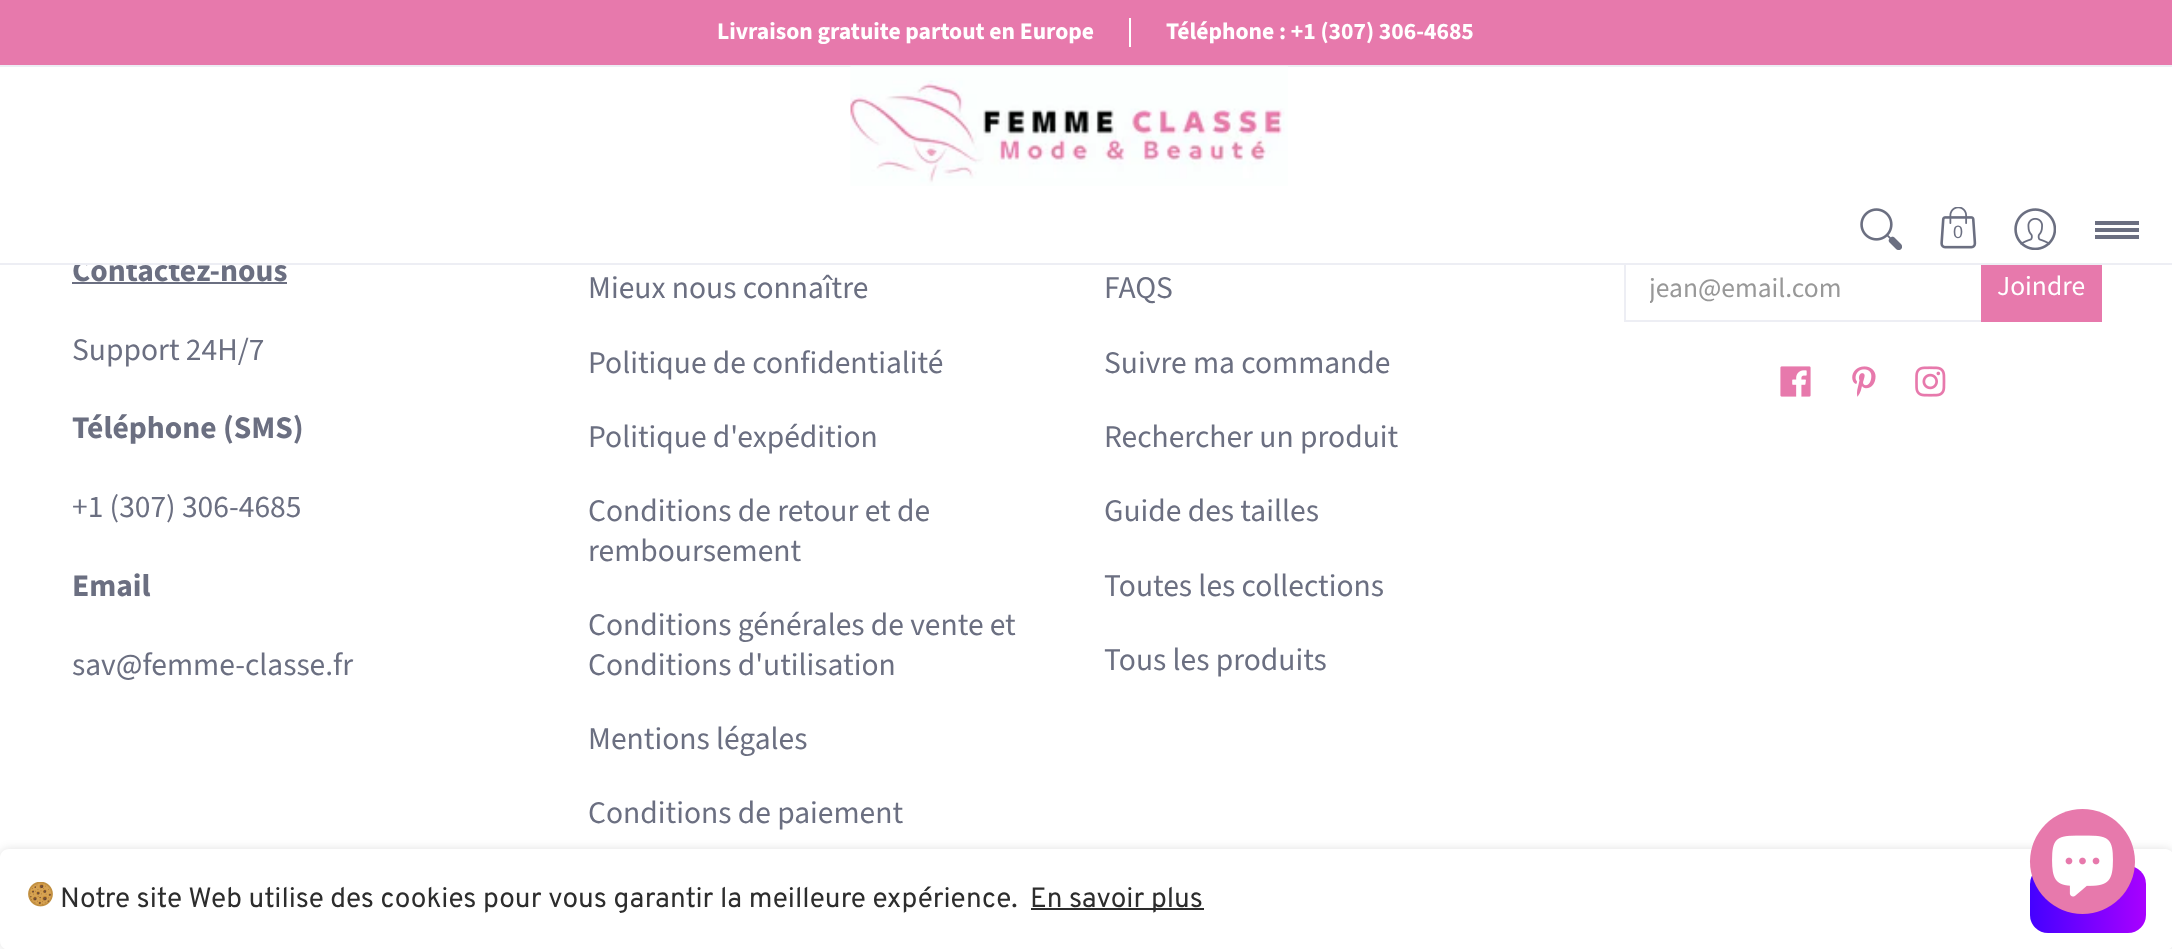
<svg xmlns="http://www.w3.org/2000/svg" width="2172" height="949">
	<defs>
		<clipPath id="clip1"><rect x="1650" y="268" width="310" height="38" /></clipPath>
		<clipPath id="clip2"><path d="M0 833H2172V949H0ZM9 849H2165C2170 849 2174 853 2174 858V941C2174 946 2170 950 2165 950H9C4 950 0 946 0 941V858C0 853 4 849 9 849Z" clip-rule="evenodd" /></clipPath>
		<linearGradient id="g1" gradientUnits="userSpaceOnUse" x1="2030" y1="900" x2="2146" y2="900"><stop offset="0" stop-color="#4401FF" /><stop offset="1" stop-color="#A901FF" /></linearGradient>
	</defs>
	<rect width="100%" height="100%" fill="#FFFFFF" />
	<text x="72" y="281" font-family="Source Sans Pro" font-size="31.5" font-weight="700" fill="#6B6F81">Contactez-nous</text>
	<rect x="1625" y="253" width="359" height="68" fill="none" stroke="#EDEEF4" stroke-width="2" />
	<rect x="76" y="252" width="1909" height="11" fill="#FFFFFF" />
	<rect x="0" y="0" width="2172" height="65" fill="#E779AC" />
	<rect x="0" y="65" width="2172" height="2" fill="#EDEEF4" />
	<text x="717" y="39" font-family="Source Sans Pro" font-size="23.6" font-weight="700" fill="#FFFFFF">Livraison gratuite partout en Europe</text>
	<rect x="1129" y="18" width="2" height="29" fill="#FFFFFF" />
	<text x="1166" y="39" font-family="Source Sans Pro" font-size="23.6" font-weight="700" fill="#FFFFFF">Téléphone : +1 (307) 306-4685</text>
	<rect x="0" y="263" width="2172" height="2" fill="#EDEEF4" />
	<image x="850" y="66" width="438" height="120" href="assets/img1.png" />
	<image x="1860" y="208" width="42" height="42" href="assets/img2.png" />
	<image x="1940" y="207" width="37" height="42" href="assets/img3.png" />
	<text x="1953" y="238" font-family="Liberation Sans" font-size="18" fill="#6B6F81">0</text>
	<image x="2014" y="208" width="42" height="42" href="assets/img4.png" />
	<rect x="2095" y="221" width="44" height="4" fill="#6B6F81" />
	<rect x="2095" y="235" width="44" height="4" fill="#6B6F81" />
	<rect x="2095" y="228" width="44" height="4" fill="#6B6F81" />
	<rect x="72" y="282" width="215" height="2" fill="#6B6F81" />
	<text x="72" y="360" font-family="Source Sans Pro" font-size="31.5" fill="#6B6F81">Support 24H/7</text>
	<text x="72" y="438" font-family="Source Sans Pro" font-size="31.5" font-weight="700" fill="#6B6F81">Téléphone (SMS)</text>
	<text x="72" y="517" font-family="Source Sans Pro" font-size="31.5" fill="#6B6F81">+1 (307) 306-4685</text>
	<text x="72" y="596" font-family="Source Sans Pro" font-size="31.5" font-weight="700" fill="#6B6F81">Email</text>
	<g font-family="Source Sans Pro" font-size="31.5" fill="#6B6F81">
		<text x="72" y="675">sav@femme-classe.fr</text>
		<text x="588" y="298">Mieux nous connaître</text>
		<text x="588" y="373">Politique de confidentialité</text>
		<text x="588" y="447">Politique d'expédition</text>
		<text x="588" y="521">Conditions de retour et de</text>
		<text x="588" y="561">remboursement</text>
		<text x="588" y="635">Conditions générales de vente et</text>
		<text x="588" y="675">Conditions d'utilisation</text>
		<text x="588" y="749">Mentions légales</text>
		<text x="588" y="823">Conditions de paiement</text>
		<text x="1104" y="298">FAQS</text>
		<text x="1104" y="373">Suivre ma commande</text>
		<text x="1104" y="447">Rechercher un produit</text>
		<text x="1104" y="521">Guide des tailles</text>
		<text x="1104" y="596">Toutes les collections</text>
		<text x="1104" y="670">Tous les produits</text>
	</g>
	<g clip-path="url(#clip1)">
		<text x="1649" y="297" font-family="Source Sans Pro" font-size="27.5" fill="#989898">jean@email.com</text>
	</g>
	<rect x="1981" y="265" width="121" height="57" fill="#E779AC" />
	<text x="1997" y="295" font-family="Source Sans Pro" font-size="27.5" fill="#FFFFFF">Joindre</text>
	<image x="1780" y="366" width="31" height="31" href="assets/img5.png" />
	<image x="1852" y="366" width="24" height="31" href="assets/img6.png" />
	<image x="1915" y="366" width="31" height="31" href="assets/img7.png" />
	<g clip-path="url(#clip2)">
		<rect x="0" y="849" width="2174" height="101" rx="9" fill="#000000" fill-opacity="0.12" filter="blur(5px)" />
	</g>
	<image x="28" y="882" width="25" height="25" href="assets/img8.png" />
	<text x="60" y="907" font-family="Overpass" font-size="28" fill="#2D2D2D">Notre site Web utilise des cookies pour vous garantir la meilleure expérience.</text>
	<rect x="1031" y="908" width="173" height="2" fill="#2D2D2D" />
	<text x="1030" y="907" font-family="Overpass" font-size="28" fill="#2D2D2D">En savoir plus</text>
	<rect x="2030" y="866" width="116" height="67" rx="18" fill="url(#g1)" />
	<circle cx="2082.5" cy="861.5" r="52.5" fill="#E779AC" />
	<image x="2052" y="835" width="61" height="62" href="assets/img9.png" />
</svg>
